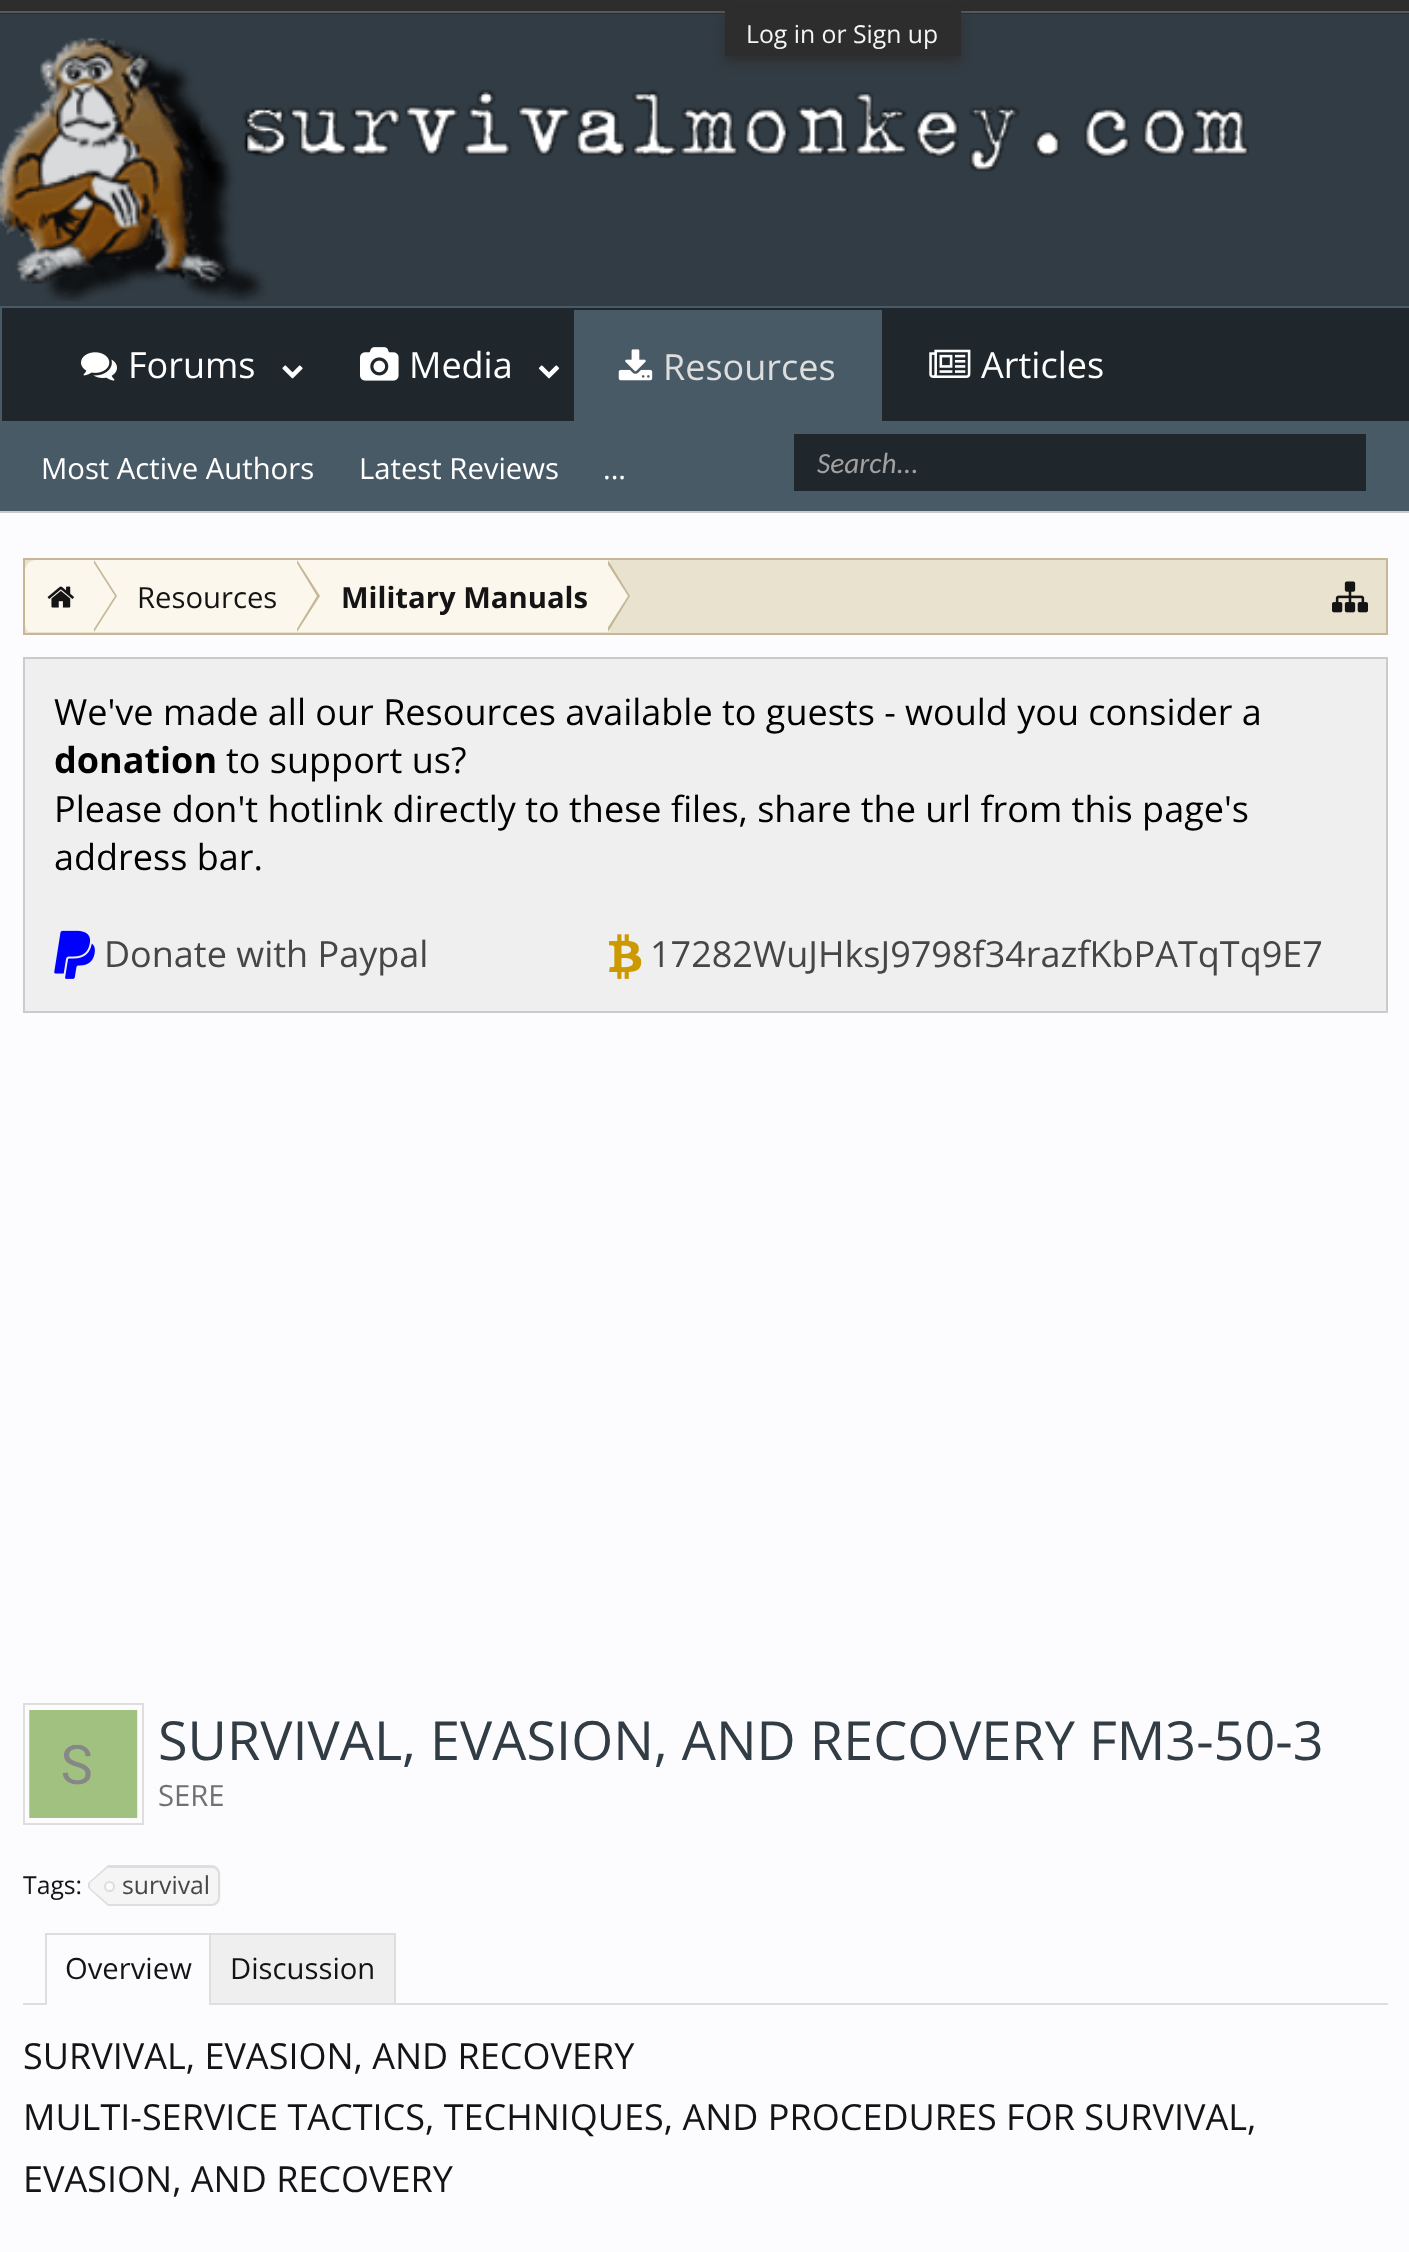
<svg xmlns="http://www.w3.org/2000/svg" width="1409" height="2252">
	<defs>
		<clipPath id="clip1"><rect x="25" y="560" width="1361" height="72" /></clipPath>
	</defs>
	<rect width="100%" height="100%" fill="#CBCBCB" />
	<rect x="0" y="14" width="1409" height="292" fill="#323C44" />
	<rect x="0" y="0" width="1409" height="14" fill="#2D2D2D" />
	<rect x="0" y="11" width="1409" height="2" fill="#585858" />
	<image x="0" y="37" width="1249" height="265" href="assets/img1.png" />
	<rect x="725" y="16" width="236" height="45" fill="#2D2D2D" filter="blur(5.5px)" />
	<rect x="725" y="11" width="236" height="45" fill="#2D2D2D" />
	<text x="746" y="43" font-family="Open Sans" font-size="24.75" fill="#F5F5F5">Log in or Sign up</text>
	<rect x="1" y="307" width="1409" height="115" fill="#1F272C" stroke="#495A67" stroke-width="2" />
	<image x="81" y="352" width="36" height="29" href="assets/img2.png" />
	<text x="128" y="378" font-family="Open Sans" font-size="36" fill="#FFFFFF">Forums</text>
	<image x="282" y="365" width="21" height="14" href="assets/img3.png" />
	<image x="360" y="347" width="39" height="34" href="assets/img4.png" />
	<text x="409" y="378" font-family="Open Sans" font-size="36" fill="#FFFFFF">Media</text>
	<image x="538" y="365" width="22" height="14" href="assets/img5.png" />
	<image x="929" y="349" width="42" height="29" href="assets/img6.png" />
	<text x="981" y="378" font-family="Open Sans" font-size="36" fill="#FFFFFF">Articles</text>
	<rect x="574" y="310" width="308" height="111" fill="#495A67" />
	<rect x="573" y="309" width="310" height="115" fill="none" stroke="#1F272C" stroke-width="2" />
	<image x="618" y="349" width="35" height="32" href="assets/img7.png" />
	<text x="663" y="380" font-family="Open Sans" font-size="36" fill="#DEDEDE">Resources</text>
	<rect x="0" y="421" width="1409" height="90" fill="#495A67" />
	<g font-family="Open Sans" font-size="29.25" fill="#FFFFFF">
		<text x="41" y="479">Most Active Authors</text>
		<text x="359" y="479">Latest Reviews</text>
		<text x="603" y="479">...</text>
	</g>
	<rect x="794" y="434" width="572" height="57" fill="#1F272C" />
	<text x="817" y="473" font-family="Carlito" font-size="29.25" font-style="italic" fill="#A0A0A0">Search...</text>
	<rect x="0" y="513" width="1409" height="1739" fill="#FCFCFF" />
	<rect x="24" y="559" width="1363" height="75" fill="#E9E2CE" stroke="#C6B897" stroke-width="2" />
	<g clip-path="url(#clip1)">
		<path d="M36 560H97V635H36C30 635 25 630 25 624V571C25 565 30 560 36 560Z" fill="#FBF7ED" />
	</g>
	<image x="47" y="586" width="27" height="22" href="assets/img8.png" />
	<rect x="97" y="560" width="513" height="72" fill="#FBF7ED" />
	<path d="M94 632V560L117 596Z" fill="#C6B897" />
	<path d="M92 632V560L115 596Z" fill="#FBF7ED" />
	<text x="137" y="608" font-family="Open Sans" font-size="29.25" fill="#141414">Resources</text>
	<path d="M297 632V560L320 596Z" fill="#C6B897" />
	<path d="M295 632V560L317 596Z" fill="#FBF7ED" />
	<text x="341" y="608" font-family="Open Sans" font-size="29.25" font-weight="700" fill="#141414">Military Manuals</text>
	<path d="M608 632V560L630 596Z" fill="#C6B897" />
	<path d="M605 632V560L628 596Z" fill="#FBF7ED" />
	<image x="1332" y="581" width="36" height="32" href="assets/img9.png" />
	<rect x="24" y="658" width="1363" height="354" fill="#EFEFEF" stroke="#CBCBCB" stroke-width="2" />
	<text x="54" y="725" font-family="Open Sans" font-size="36" fill="#000000">We've made all our Resources available to guests - would you consider a</text>
	<text x="54" y="773" font-family="Open Sans" font-size="36" font-weight="700" fill="#000000">donation</text>
	<g font-family="Open Sans" font-size="36" fill="#000000">
		<text x="226" y="773">to support us?</text>
		<text x="54" y="822">Please don't hotlink directly to these files, share the url from this page's</text>
		<text x="54" y="870">address bar.</text>
	</g>
	<image x="54" y="930" width="41" height="49" href="assets/img10.png" />
	<text x="104" y="967" font-family="Open Sans" font-size="36" fill="#464646">Donate with Paypal</text>
	<image x="609" y="934" width="33" height="45" href="assets/img11.png" />
	<text x="650" y="967" font-family="Open Sans" font-size="36" fill="#464646">17282WuJHksJ9798f34razfKbPATqTq9E7</text>
	<rect x="24" y="1704" width="119" height="120" fill="none" stroke="#DEDEDE" stroke-width="2" />
	<image x="29" y="1710" width="109" height="108" href="assets/img12.png" />
	<text x="158" y="1760" font-family="Open Sans" font-size="54" fill="#323C44">SURVIVAL, EVASION, AND RECOVERY FM3-50-3</text>
	<text x="158" y="1806" font-family="Open Sans" font-size="29.25" fill="#717171">SERE</text>
	<text x="23" y="1894" font-family="Open Sans" font-size="24.75" fill="#141414">Tags:</text>
	<path d="M108 1865H212C217 1865 221 1869 221 1874V1897C221 1902 217 1906 212 1906H108Z" fill="#F5F5F5" />
	<path d="M108 1865H212C216 1865 220 1869 220 1874V1897C220 1902 216 1906 212 1906H108ZM108 1868H212C215 1868 218 1871 218 1874V1897C218 1900 215 1904 212 1904H108Z" fill="#DEDEDE" fill-rule="evenodd" />
	<path d="M108 1865V1906L88 1888V1883Z" fill="#DEDEDE" />
	<path d="M108 1867.5V1903.5L90 1888V1883Z" fill="#F5F5F5" />
	<circle cx="109.5" cy="1886.5" r="4.5" fill="#FCFCFF" stroke="#DEDEDE" stroke-width="2" />
	<text x="122" y="1894" font-family="Open Sans" font-size="24.75" fill="#464646">survival</text>
	<rect x="23" y="2003" width="1365" height="2" fill="#DEDEDE" />
	<rect x="47" y="2003" width="162" height="2" fill="#FCFCFF" />
	<rect x="45" y="1933" width="167" height="2" fill="#DEDEDE" />
	<rect x="45" y="1933" width="2" height="72" fill="#DEDEDE" />
	<text x="65" y="1979" font-family="Open Sans" font-size="29.25" fill="#141414">Overview</text>
	<rect x="210" y="1934" width="185" height="70" fill="#EFEFEF" stroke="#DEDEDE" stroke-width="2" />
	<text x="230" y="1979" font-family="Open Sans" font-size="29.25" fill="#141414">Discussion</text>
	<g font-family="Open Sans" font-size="36" fill="#141414">
		<text x="23" y="2069">SURVIVAL, EVASION, AND RECOVERY</text>
		<text x="23" y="2130">MULTI-SERVICE TACTICS, TECHNIQUES, AND PROCEDURES FOR SURVIVAL,</text>
		<text x="23" y="2192">EVASION, AND RECOVERY</text>
	</g>
</svg>
